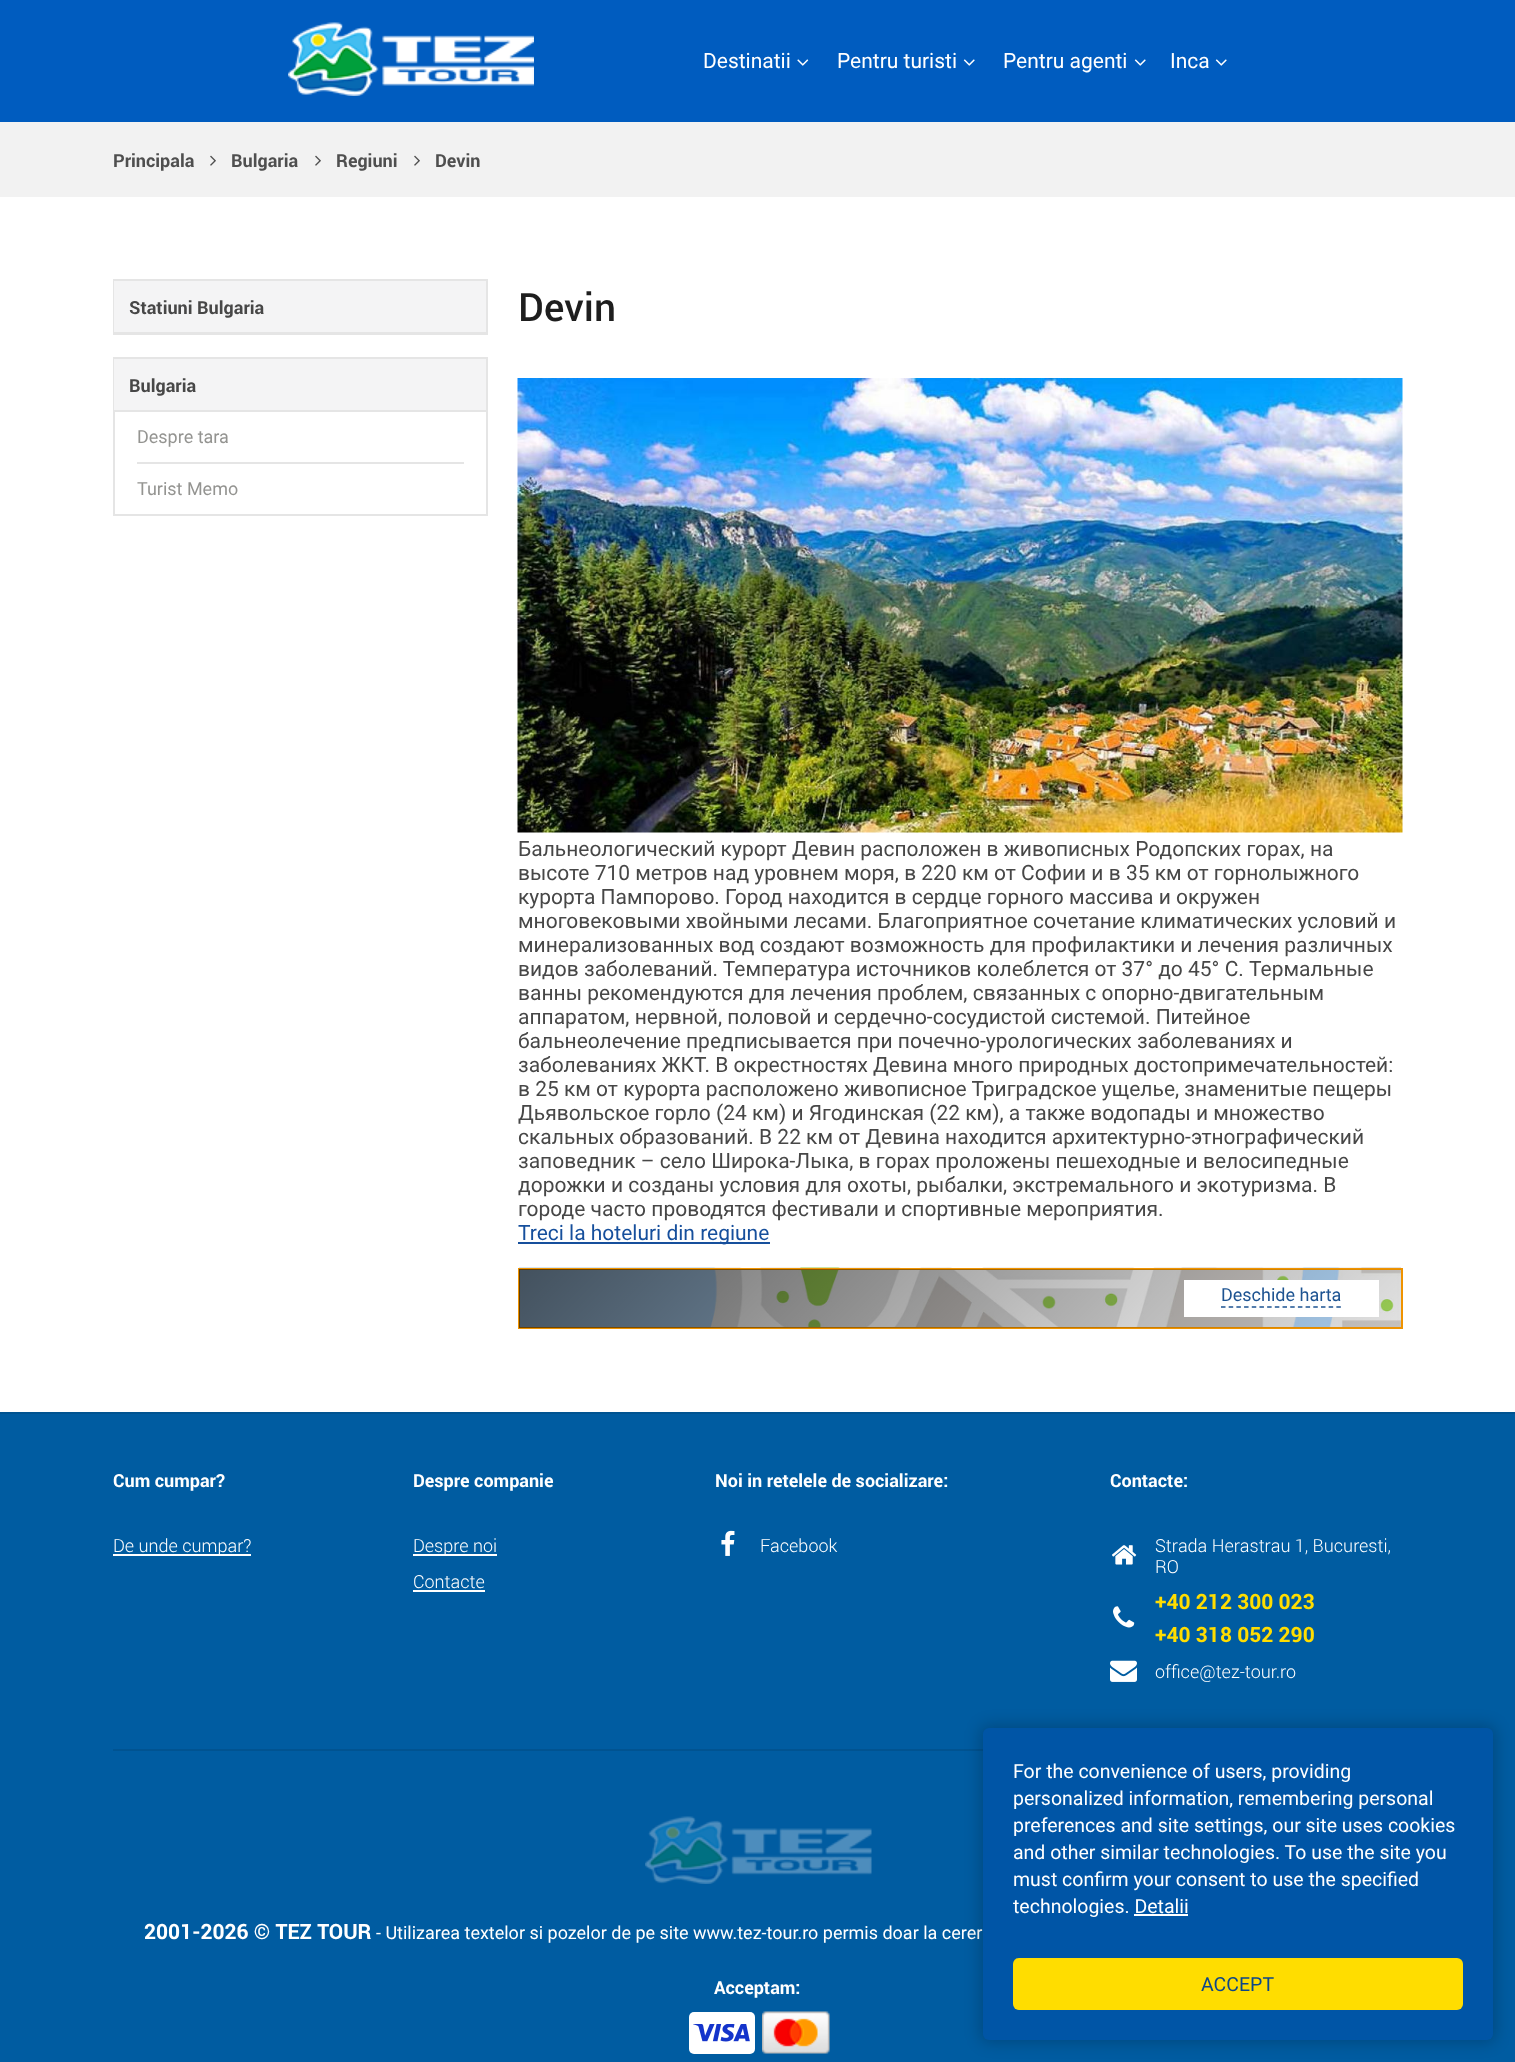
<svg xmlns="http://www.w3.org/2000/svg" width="1515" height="2062">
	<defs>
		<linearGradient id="g1" gradientUnits="userSpaceOnUse" x1="725" y1="1063" x2="1195" y2="1533"><stop offset="0" stop-color="#000000" stop-opacity="0.6" /><stop offset="1" stop-color="#000000" stop-opacity="0" /></linearGradient>
	</defs>
	<rect width="100%" height="100%" fill="#FFFFFF" />
	<rect x="0" y="0" width="1515" height="122" fill="#005CBF" />
	<image x="288" y="22" width="246" height="74" href="assets/img1.png" />
	<text x="703" y="68" font-family="Roboto" font-size="21" fill="#FFFFFF">Destinatii</text>
	<image x="797" y="59" width="12" height="7" href="assets/img2.png" />
	<text x="837" y="68" font-family="Roboto" font-size="21" fill="#FFFFFF">Pentru turisti</text>
	<image x="963" y="59" width="12" height="7" href="assets/img3.png" />
	<text x="1003" y="68" font-family="Roboto" font-size="21" fill="#FFFFFF">Pentru agenti</text>
	<image x="1134" y="59" width="12" height="7" href="assets/img3.png" />
	<text x="1170" y="68" font-family="Roboto" font-size="21" fill="#FFFFFF">Inca</text>
	<image x="1215" y="59" width="12" height="7" href="assets/img3.png" />
	<rect x="0" y="122" width="1515" height="75" fill="#F2F2F2" />
	<text x="113" y="167" font-family="Roboto" font-size="18" font-weight="700" fill="#4F4F4F">Principala</text>
	<image x="210" y="155" width="6" height="11" href="assets/img4.png" />
	<text x="231" y="167" font-family="Roboto" font-size="18" font-weight="700" fill="#4F4F4F">Bulgaria</text>
	<image x="315" y="155" width="6" height="11" href="assets/img4.png" />
	<text x="336" y="167" font-family="Roboto" font-size="18" font-weight="700" fill="#4F4F4F">Regiuni</text>
	<image x="414" y="155" width="6" height="11" href="assets/img4.png" />
	<text x="435" y="167" font-family="Roboto" font-size="18" font-weight="700" fill="#4F4F4F">Devin</text>
	<rect x="114" y="280" width="373" height="54" fill="none" stroke="#E5E5E5" stroke-width="2" />
	<rect x="114" y="281" width="372" height="51" fill="#F4F4F5" />
	<rect x="114" y="332" width="372" height="1" fill="#E5E5E5" />
	<text x="129" y="314" font-family="Roboto" font-size="18" font-weight="700" fill="#474747">Statiuni Bulgaria</text>
	<rect x="114" y="358" width="373" height="157" fill="none" stroke="#E5E5E5" stroke-width="2" />
	<rect x="114" y="359" width="372" height="51" fill="#F4F4F5" />
	<rect x="114" y="410" width="372" height="2" fill="#E5E5E5" />
	<text x="129" y="392" font-family="Roboto" font-size="18" font-weight="700" fill="#474747">Bulgaria</text>
	<rect x="137" y="462" width="327" height="2" fill="#E5E5E5" />
	<g font-family="Roboto" font-size="18" fill="#949491">
		<text x="137" y="443">Despre tara</text>
		<text x="137" y="495">Turist Memo</text>
	</g>
	<text x="518" y="321" font-family="Roboto" font-size="39" font-weight="500" fill="#1E1E1E">Devin</text>
	<image x="517" y="378" width="886" height="455" href="assets/img5.png" />
	<g font-family="Roboto" font-size="21" fill="#474747">
		<text x="518" y="856">Бальнеологический курорт Девин расположен в живописных Родопских горах, на</text>
		<text x="518" y="880">высоте 710 метров над уровнем моря, в 220 км от Софии и в 35 км от горнолыжного</text>
		<text x="518" y="904">курорта Пампорово. Город находится в сердце горного массива и окружен</text>
		<text x="518" y="928">многовековыми хвойными лесами. Благоприятное сочетание климатических условий и</text>
		<text x="518" y="952">минерализованных вод создают возможность для профилактики и лечения различных</text>
		<text x="518" y="976">видов заболеваний. Температура источников колеблется от 37° до 45° C. Термальные</text>
		<text x="518" y="1000">ванны рекомендуются для лечения проблем, связанных с опорно-двигательным</text>
		<text x="518" y="1024">аппаратом, нервной, половой и сердечно-сосудистой системой. Питейное</text>
		<text x="518" y="1048">бальнеолечение предписывается при почечно-урологических заболеваниях и</text>
		<text x="518" y="1072">заболеваниях ЖКТ. В окрестностях Девина много природных достопримечательностей:</text>
		<text x="518" y="1096">в 25 км от курорта расположено живописное Триградское ущелье, знаменитые пещеры</text>
		<text x="518" y="1120">Дьявольское горло (24 км) и Ягодинская (22 км), а также водопады и множество</text>
		<text x="518" y="1144">скальных образований. В 22 км от Девина находится архитектурно-этнографический</text>
		<text x="518" y="1168">заповедник – село Широка-Лыка, в горах проложены пешеходные и велосипедные</text>
		<text x="518" y="1192">дорожки и созданы условия для охоты, рыбалки, экстремального и экотуризма. В</text>
		<text x="518" y="1216">городе часто проводятся фестивали и спортивные мероприятия.</text>
	</g>
	<rect x="518" y="1242" width="252" height="2" fill="#164F9C" />
	<text x="518" y="1240" font-family="Roboto" font-size="21" fill="#164F9C">Treci la hoteluri din regiune</text>
	<image x="519" y="1267" width="882" height="60" href="assets/img6.png" />
	<rect x="519" y="1269" width="883" height="59" fill="none" stroke="#EF9300" stroke-width="2" />
	<rect x="519" y="1269" width="882" height="59" fill="url(#g1)" />
	<rect x="1184" y="1280" width="195" height="37" fill="#FFFFFF" />
	<text x="1221" y="1301" font-family="Roboto" font-size="18" fill="#1D5391">Deschide harta</text>
	<path d="M1221 1307H1341" fill="none" stroke="#1D5391" stroke-width="1.5" stroke-dasharray="4.5 3.19" />
	<rect x="0" y="1414" width="1515" height="648" fill="#005CA1" />
	<rect x="0" y="1412" width="1515" height="2" fill="#005391" />
	<text x="113" y="1487" font-family="Roboto" font-size="18" font-weight="700" fill="#FFFFFF">Cum cumpar?</text>
	<rect x="113" y="1554" width="138" height="2" fill="#FFFFFF" />
	<text x="113" y="1552" font-family="Roboto" font-size="18" font-weight="300" fill="#FFFFFF">De unde cumpar?</text>
	<text x="413" y="1487" font-family="Roboto" font-size="18" font-weight="700" fill="#FFFFFF">Despre companie</text>
	<rect x="413" y="1554" width="84" height="2" fill="#FFFFFF" />
	<g font-family="Roboto" font-size="18" font-weight="300" fill="#FFFFFF">
		<text x="413" y="1552">Despre noi</text>
		<text x="413" y="1588">Contacte</text>
	</g>
	<rect x="413" y="1590" width="72" height="2" fill="#FFFFFF" />
	<text x="715" y="1487" font-family="Roboto" font-size="18" font-weight="700" fill="#FFFFFF">Noi in retelele de socializare:</text>
	<image x="721" y="1530" width="14" height="26" href="assets/img7.png" />
	<text x="760" y="1552" font-family="Roboto" font-size="18" font-weight="300" fill="#FFFFFF">Facebook</text>
	<text x="1110" y="1487" font-family="Roboto" font-size="18" font-weight="700" fill="#FFFFFF">Contacte:</text>
	<image x="1112" y="1545" width="25" height="20" href="assets/img8.png" />
	<g font-family="Roboto" font-size="18" font-weight="300" fill="#FFFFFF">
		<text x="1155" y="1552">Strada Herastrau 1, Bucuresti,</text>
		<text x="1155" y="1573">RO</text>
	</g>
	<text x="1155" y="1609" font-family="Roboto" font-size="21" font-weight="700" fill="#FFDD00">+40 212 300 023</text>
	<image x="1113" y="1606" width="22" height="22" href="assets/img9.png" />
	<text x="1155" y="1642" font-family="Roboto" font-size="21" font-weight="700" fill="#FFDD00">+40 318 052 290</text>
	<image x="1110" y="1660" width="27" height="22" href="assets/img10.png" />
	<text x="1155" y="1678" font-family="Roboto" font-size="18" font-weight="300" fill="#FFFFFF">office@tez-tour.ro</text>
	<rect x="113" y="1749" width="870" height="2" fill="#005391" />
	<image x="645" y="1816" width="227" height="68" href="assets/img11.png" />
	<text x="144" y="1939" font-family="Roboto" font-size="21" font-weight="700" fill="#FFFFFF">2001-2026 © TEZ TOUR</text>
	<text x="376" y="1939" font-family="Roboto" font-size="18" fill="#FFFFFF">- Utilizarea textelor si pozelor de pe site www.tez-tour.ro permis doar la cerer</text>
	<text x="714" y="1994" font-family="Roboto" font-size="18" font-weight="700" fill="#FFFFFF">Acceptam:</text>
	<rect x="689" y="2012" width="66" height="42" rx="5" fill="#FFFFFF" />
	<image x="762" y="2011" width="68" height="43" href="assets/img12.png" />
	<image x="693" y="2024" width="57" height="18" href="assets/img13.png" />
	<rect x="980" y="1725" width="516" height="318" rx="9" fill="#000000" fill-opacity="0.2" filter="blur(7.5px)" />
	<rect x="983" y="1728" width="510" height="312" rx="6" fill="#0055A6" />
	<g font-family="Roboto" font-size="19.5" fill="#FFFFFF">
		<text x="1013" y="1778">For the convenience of users, providing</text>
		<text x="1013" y="1805">personalized information, remembering personal</text>
		<text x="1013" y="1832">preferences and site settings, our site uses cookies</text>
		<text x="1013" y="1859">and other similar technologies. To use the site you</text>
		<text x="1013" y="1886">must confirm your consent to use the specified</text>
		<text x="1013" y="1913">technologies. Detalii</text>
	</g>
	<rect x="1134" y="1914" width="54" height="2" fill="#FFFFFF" />
	<rect x="1013" y="1958" width="450" height="52" rx="6" fill="#FFDD00" />
	<text x="1201" y="1991" font-family="Roboto" font-size="19.5" fill="#0D4689">ACCEPT</text>
</svg>
